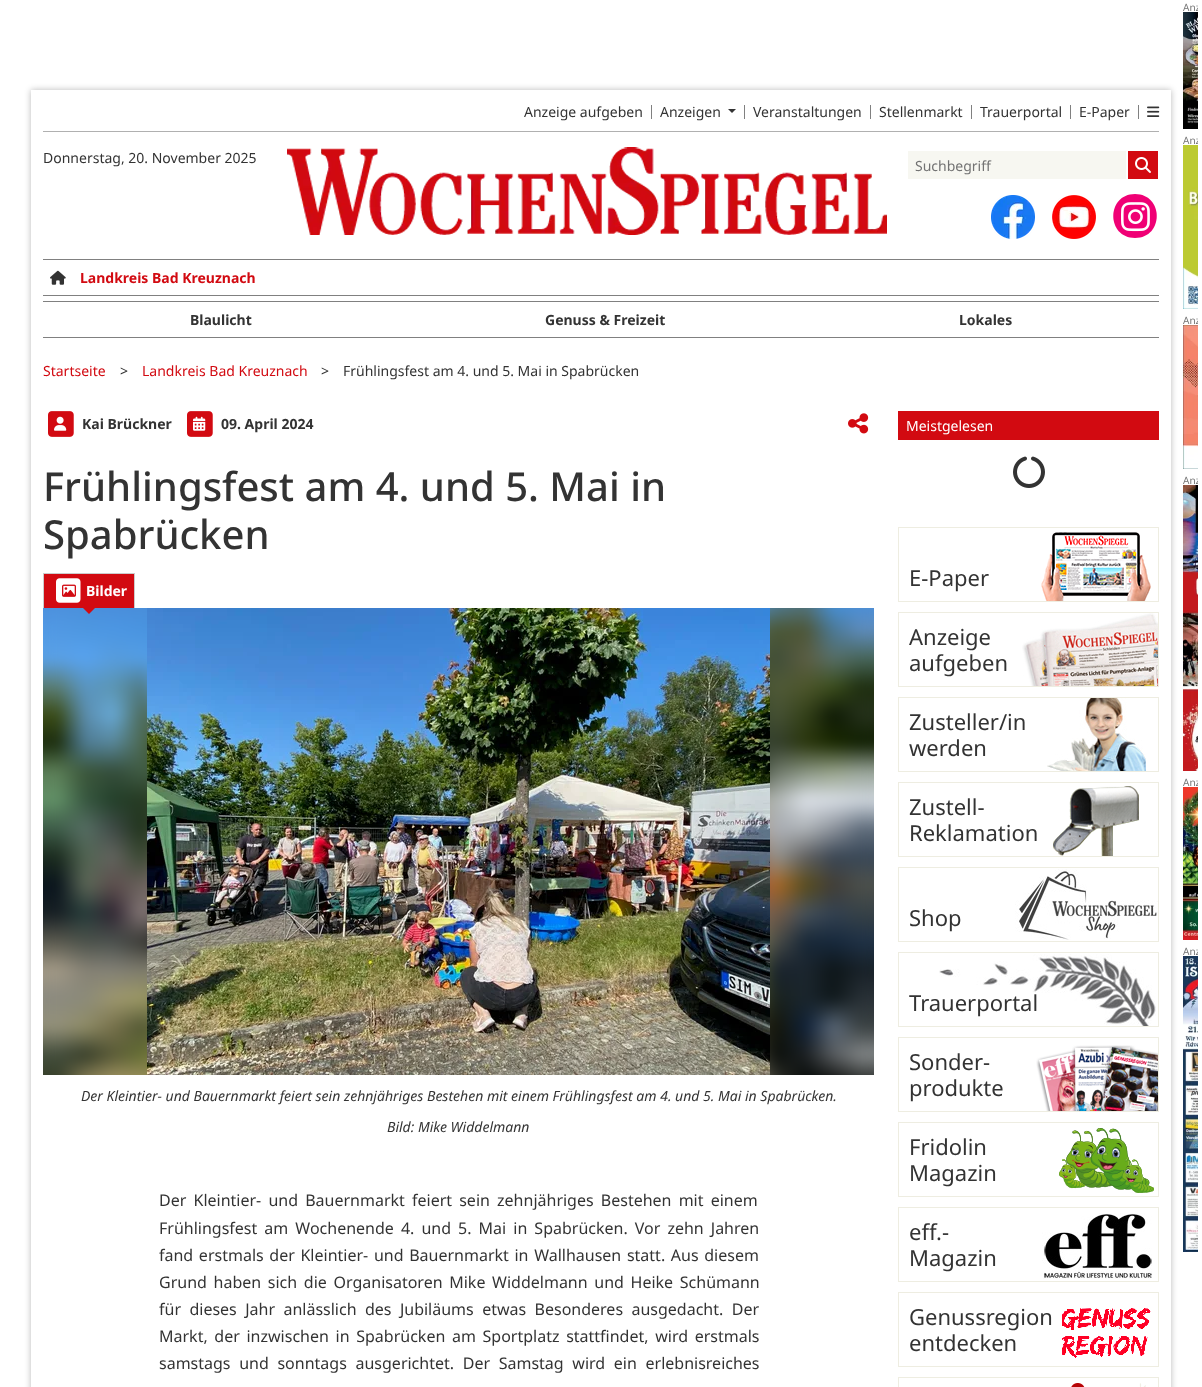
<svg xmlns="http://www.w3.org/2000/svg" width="1202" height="1387">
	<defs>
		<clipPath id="clip1"><path d="M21 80H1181V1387H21ZM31 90H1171V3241H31Z" clip-rule="evenodd" /></clipPath>
		<clipPath id="clip2"><rect x="1183" y="0" width="15" height="1268" /></clipPath>
	</defs>
	<rect width="100%" height="100%" fill="#FFFFFF" />
	<g clip-path="url(#clip1)">
		<rect x="31" y="90" width="1140" height="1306" fill="#000000" fill-opacity="0.28" filter="blur(3px)" />
	</g>
	<text x="524" y="117" font-family="Noto Sans" font-size="14" fill="#333333">Anzeige aufgeben</text>
	<rect x="651" y="105" width="1" height="14" fill="#808080" />
	<text x="660" y="117" font-family="Noto Sans" font-size="14" fill="#333333">Anzeigen</text>
	<path d="M728 109H736L732 113Z" fill="#333333" />
	<rect x="744" y="105" width="1" height="14" fill="#808080" />
	<text x="753" y="117" font-family="Noto Sans" font-size="14" fill="#333333">Veranstaltungen</text>
	<rect x="870" y="105" width="1" height="14" fill="#808080" />
	<text x="879" y="117" font-family="Noto Sans" font-size="14" fill="#333333">Stellenmarkt</text>
	<rect x="971" y="105" width="1" height="14" fill="#808080" />
	<text x="980" y="117" font-family="Noto Sans" font-size="14" fill="#333333">Trauerportal</text>
	<rect x="1070" y="105" width="1" height="14" fill="#808080" />
	<text x="1079" y="117" font-family="Noto Sans" font-size="14" fill="#333333">E-Paper</text>
	<rect x="1138" y="105" width="1" height="14" fill="#808080" />
	<image x="1147" y="106" width="13" height="11" href="assets/img1.png" />
	<rect x="43" y="131" width="1116" height="1" fill="#B0B0B0" />
	<text x="43" y="163" font-family="Noto Sans" font-size="14" fill="#333333">Donnerstag, 20. November 2025</text>
	<image x="287" y="147" width="600" height="88" href="assets/img2.png" />
	<rect x="908" y="151" width="218" height="28" fill="#F7F7F1" />
	<text x="915" y="171" font-family="Noto Sans" font-size="14" fill="#737373">Suchbegriff</text>
	<rect x="1128" y="151" width="30" height="28" fill="#D20A11" />
	<image x="1135" y="157" width="16" height="16" href="assets/img3.png" />
	<image x="991" y="195" width="44" height="44" href="assets/img4.png" />
	<image x="1052" y="195" width="44" height="44" href="assets/img5.png" />
	<path d="M1135 238C1164 238 1164 194 1135 194C1106 194 1106 238 1135 238Z" fill="#F00075" />
	<image x="1121" y="202" width="29" height="30" href="assets/img6.png" />
	<rect x="43" y="259" width="1116" height="1" fill="#808080" />
	<rect x="43" y="295" width="1116" height="1" fill="#808080" />
	<image x="50" y="270" width="16" height="15" href="assets/img7.png" />
	<text x="80" y="283" font-family="Noto Sans" font-size="14" font-weight="700" fill="#D20A11">Landkreis Bad Kreuznach</text>
	<rect x="43" y="301" width="1116" height="1" fill="#808080" />
	<rect x="43" y="337" width="1116" height="1" fill="#808080" />
	<g font-family="Noto Sans" font-size="14" font-weight="700" fill="#333333">
		<text x="190" y="325">Blaulicht</text>
		<text x="545" y="325">Genuss &amp; Freizeit</text>
		<text x="959" y="325">Lokales</text>
	</g>
	<text x="43" y="376" font-family="Noto Sans" font-size="14" fill="#D20A11">Startseite</text>
	<text x="120" y="376" font-family="Noto Sans" font-size="14" fill="#333333">&gt;</text>
	<text x="142" y="376" font-family="Noto Sans" font-size="14" fill="#D20A11">Landkreis Bad Kreuznach</text>
	<g font-family="Noto Sans" font-size="14" fill="#333333">
		<text x="321" y="376">&gt;</text>
		<text x="343" y="376">Frühlingsfest am 4. und 5. Mai in Spabrücken</text>
	</g>
	<image x="48" y="411" width="26" height="26" href="assets/img8.png" />
	<image x="54" y="416" width="13" height="15" href="assets/img9.png" />
	<text x="82" y="429" font-family="Noto Sans" font-size="14" font-weight="700" fill="#333333">Kai Brückner</text>
	<image x="187" y="411" width="26" height="26" href="assets/img8.png" />
	<image x="193" y="416" width="13" height="15" href="assets/img10.png" />
	<text x="221" y="429" font-family="Noto Sans" font-size="14" font-weight="700" fill="#333333">09. April 2024</text>
	<image x="848" y="413" width="21" height="21" href="assets/img11.png" />
	<g font-family="Noto Sans" font-size="40" font-weight="500" fill="#333333">
		<text x="43" y="501">Frühlingsfest am 4. und 5. Mai in</text>
		<text x="43" y="549">Spabrücken</text>
	</g>
	<rect x="44" y="574" width="90" height="34" fill="#D20A11" />
	<rect x="43" y="573" width="92" height="1" fill="#CCCCCC" />
	<rect x="134" y="573" width="1" height="35" fill="#CCCCCC" />
	<rect x="43" y="573" width="1" height="35" fill="#CCCCCC" />
	<image x="56" y="578" width="25" height="25" href="assets/img12.png" />
	<image x="62" y="584" width="14" height="13" href="assets/img13.png" />
	<text x="86" y="596" font-family="Noto Sans" font-size="14" font-weight="700" fill="#FFFFFF">Bilder</text>
	<image x="43" y="608" width="831" height="467" href="assets/img14.png" />
	<path d="M83 608H95L89 614Z" fill="#D20A11" />
	<g font-family="Noto Sans" font-size="14" font-style="italic" fill="#333333">
		<text x="81" y="1101">Der Kleintier- und Bauernmarkt feiert sein zehnjähriges Bestehen mit einem Frühlingsfest am 4. und 5. Mai in Spabrücken.</text>
		<text x="387" y="1132">Bild: Mike Widdelmann</text>
	</g>
	<g font-family="Noto Sans" font-size="16" fill="#333333">
		<text x="159" y="1206" word-spacing="3">Der Kleintier- und Bauernmarkt feiert sein zehnjähriges Bestehen mit einem</text>
		<text x="159" y="1234" word-spacing="2.9">Frühlingsfest am Wochenende 4. und 5. Mai in Spabrücken. Vor zehn Jahren</text>
		<text x="159" y="1261" word-spacing="1.5">fand erstmals der Kleintier- und Bauernmarkt in Wallhausen statt. Aus diesem</text>
		<text x="159" y="1288" word-spacing="2.5">Grund haben sich die Organisatoren Mike Widdelmann und Heike Schümann</text>
		<text x="159" y="1315" word-spacing="4.25">für dieses Jahr anlässlich des Jubiläums etwas Besonderes ausgedacht. Der</text>
		<text x="159" y="1342" word-spacing="2.5">Markt, der inzwischen in Spabrücken am Sportplatz stattfindet, wird erstmals</text>
		<text x="159" y="1369" word-spacing="4.5">samstags und sonntags ausgerichtet. Der Samstag wird ein erlebnisreiches</text>
	</g>
	<rect x="898" y="411" width="261" height="29" fill="#D20A11" />
	<text x="906" y="431" font-family="Noto Sans" font-size="14" fill="#FFFFFF">Meistgelesen</text>
	<image x="1013" y="456" width="32" height="32" href="assets/img15.png" />
	<image x="1041" y="532" width="110" height="69" href="assets/img16.png" />
	<rect x="898.5" y="527.5" width="260" height="74" fill="none" stroke="#EEEDE1" />
	<text x="909" y="586" font-family="Noto Sans" font-size="22" fill="#333333">E-Paper</text>
	<image x="1022" y="613" width="136" height="73" href="assets/img17.png" />
	<rect x="898.5" y="612.5" width="260" height="74" fill="none" stroke="#EEEDE1" />
	<g font-family="Noto Sans" font-size="22" fill="#333333">
		<text x="909" y="645">Anzeige</text>
		<text x="909" y="671">aufgeben</text>
	</g>
	<image x="1047" y="698" width="99" height="73" href="assets/img18.png" />
	<rect x="898.5" y="697.5" width="260" height="74" fill="none" stroke="#EEEDE1" />
	<g font-family="Noto Sans" font-size="22" fill="#333333">
		<text x="909" y="730">Zusteller/in</text>
		<text x="909" y="756">werden</text>
	</g>
	<image x="1053" y="786" width="86" height="70" href="assets/img19.png" />
	<rect x="898.5" y="782.5" width="260" height="74" fill="none" stroke="#EEEDE1" />
	<g font-family="Noto Sans" font-size="22" fill="#333333">
		<text x="909" y="815">Zustell-</text>
		<text x="909" y="841">Reklamation</text>
	</g>
	<image x="1015" y="869" width="143" height="71" href="assets/img20.png" />
	<rect x="898.5" y="867.5" width="260" height="74" fill="none" stroke="#EEEDE1" />
	<text x="909" y="926" font-family="Noto Sans" font-size="22" fill="#333333">Shop</text>
	<image x="939" y="954" width="217" height="72" href="assets/img21.png" />
	<rect x="898.5" y="952.5" width="260" height="74" fill="none" stroke="#EEEDE1" />
	<text x="909" y="1011" font-family="Noto Sans" font-size="22" fill="#333333">Trauerportal</text>
	<image x="1036" y="1045" width="122" height="66" href="assets/img22.png" />
	<rect x="898.5" y="1037.5" width="260" height="74" fill="none" stroke="#EEEDE1" />
	<g font-family="Noto Sans" font-size="22" fill="#333333">
		<text x="909" y="1070">Sonder-</text>
		<text x="909" y="1096">produkte</text>
	</g>
	<image x="1059" y="1128" width="95" height="65" href="assets/img23.png" />
	<rect x="898.5" y="1122.5" width="260" height="74" fill="none" stroke="#EEEDE1" />
	<g font-family="Noto Sans" font-size="22" fill="#333333">
		<text x="909" y="1155">Fridolin</text>
		<text x="909" y="1181">Magazin</text>
	</g>
	<image x="1042" y="1213" width="110" height="66" href="assets/img24.png" />
	<rect x="898.5" y="1207.5" width="260" height="74" fill="none" stroke="#EEEDE1" />
	<g font-family="Noto Sans" font-size="22" fill="#333333">
		<text x="909" y="1240">eff.-</text>
		<text x="909" y="1266">Magazin</text>
	</g>
	<image x="1062" y="1308" width="89" height="50" href="assets/img25.png" />
	<rect x="898.5" y="1292.5" width="260" height="74" fill="none" stroke="#EEEDE1" />
	<g font-family="Noto Sans" font-size="22" fill="#333333">
		<text x="909" y="1325">Genussregion</text>
		<text x="909" y="1351">entdecken</text>
	</g>
	<image x="1071" y="1383" width="75" height="4" href="assets/img26.png" />
	<rect x="898.5" y="1377.5" width="260" height="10" fill="none" stroke="#EEEDE1" />
	<g clip-path="url(#clip2)">
		<text x="1183" y="11" font-family="Noto Sans" font-size="10" fill="#737373">Anz</text>
	</g>
	<image x="1183" y="12" width="15" height="117" href="assets/img27.png" />
	<g clip-path="url(#clip2)">
		<text x="1183" y="144" font-family="Noto Sans" font-size="10" fill="#737373">Anz</text>
	</g>
	<image x="1183" y="145" width="15" height="164" href="assets/img28.png" />
	<g clip-path="url(#clip2)">
		<text x="1183" y="324" font-family="Noto Sans" font-size="10" fill="#737373">Anz</text>
	</g>
	<image x="1183" y="325" width="15" height="144" href="assets/img29.png" />
	<g clip-path="url(#clip2)">
		<text x="1183" y="484" font-family="Noto Sans" font-size="10" fill="#737373">Anz</text>
	</g>
	<image x="1183" y="485" width="15" height="286" href="assets/img30.png" />
	<g clip-path="url(#clip2)">
		<text x="1183" y="786" font-family="Noto Sans" font-size="10" fill="#737373">Anz</text>
	</g>
	<image x="1183" y="787" width="15" height="153" href="assets/img31.png" />
	<g clip-path="url(#clip2)">
		<text x="1183" y="955" font-family="Noto Sans" font-size="10" fill="#737373">Anz</text>
	</g>
	<image x="1183" y="956" width="15" height="296" href="assets/img32.png" />
</svg>
